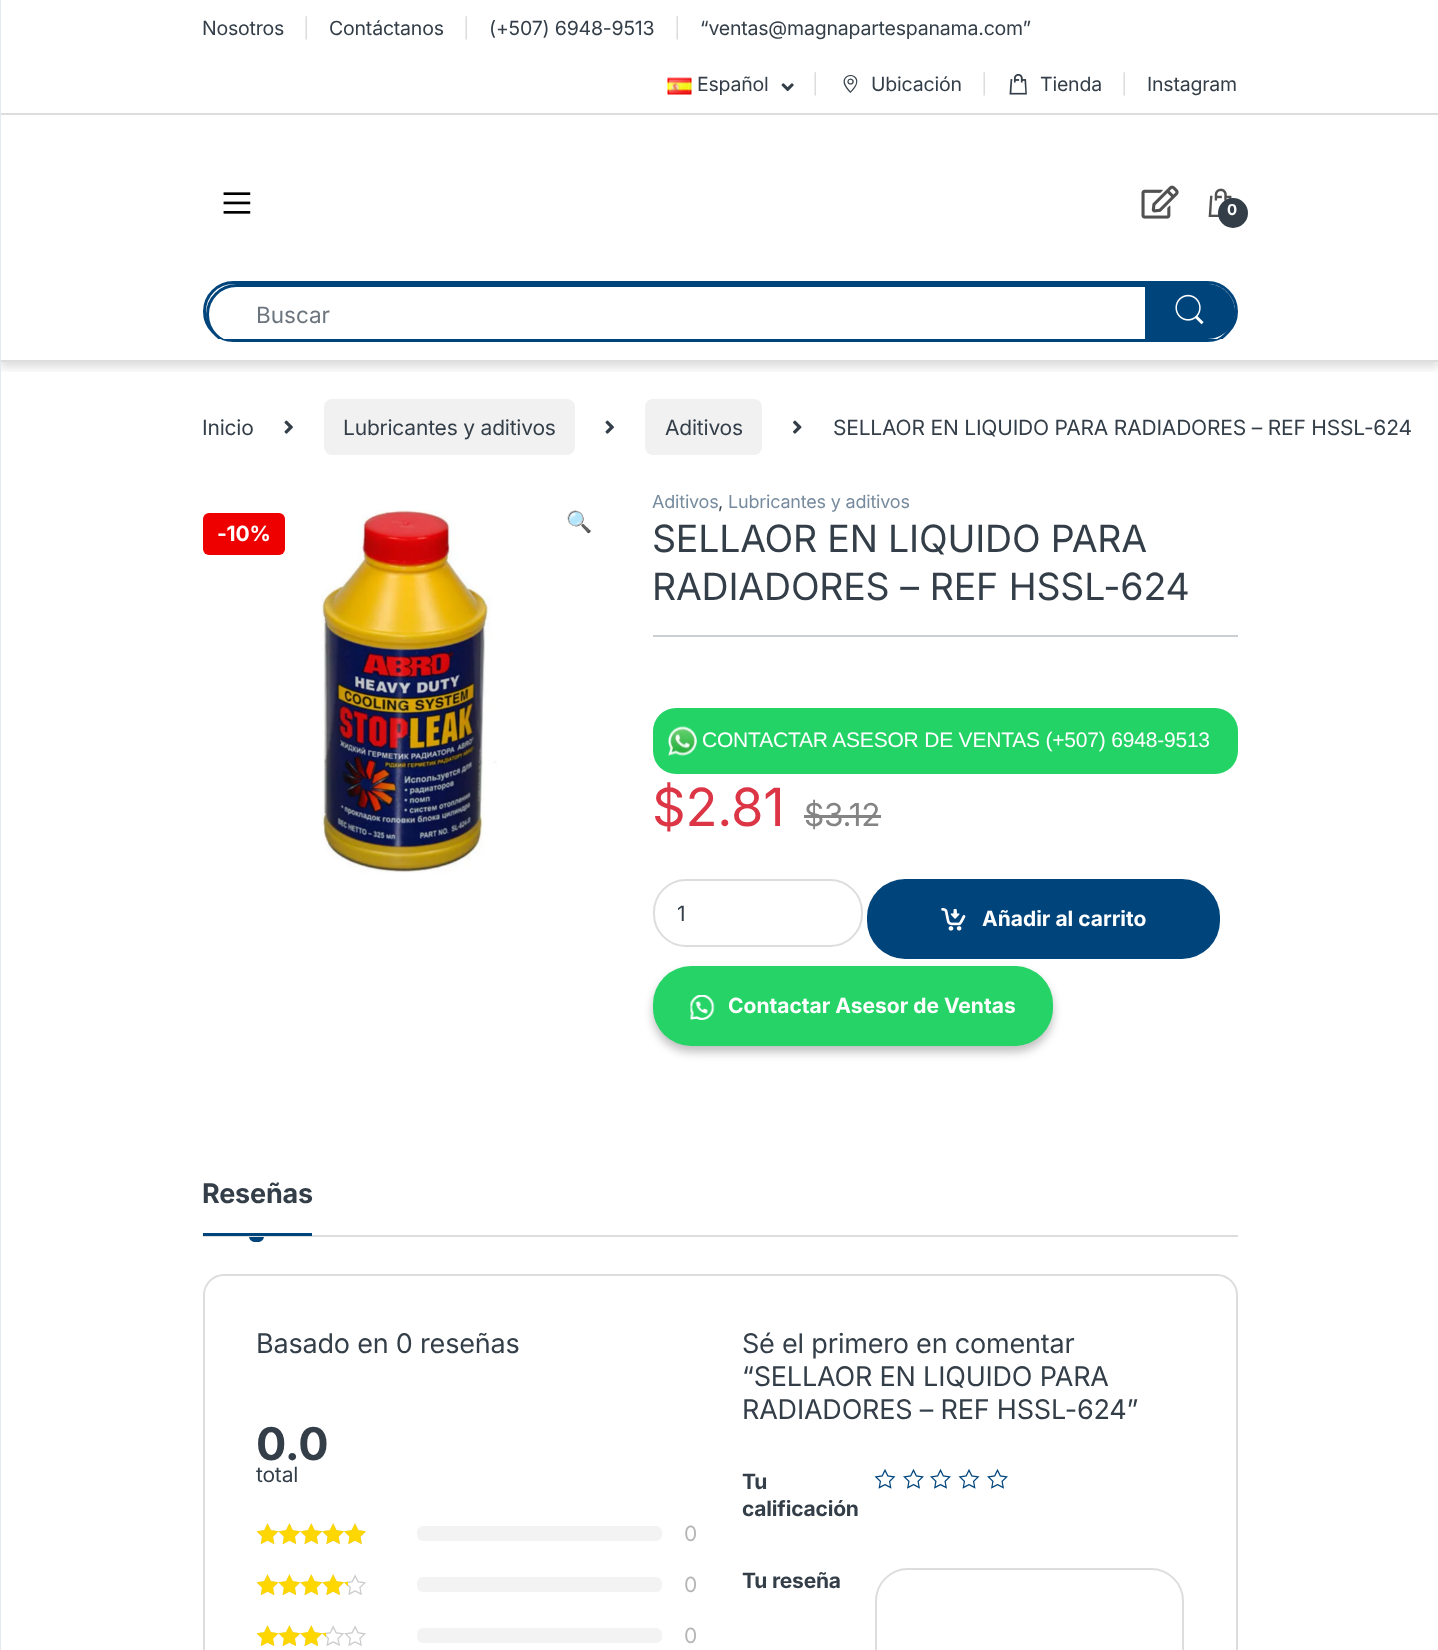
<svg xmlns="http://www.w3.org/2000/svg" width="1438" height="1650">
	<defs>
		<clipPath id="clip1"><rect x="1" y="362" width="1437" height="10" /></clipPath>
		<clipPath id="clip2"><rect x="206" y="284" width="1029" height="55" /></clipPath>
	</defs>
	<rect width="100%" height="100%" fill="#FFFFFF" />
	<rect x="0" y="113" width="1438" height="2" fill="#DDDDDD" />
	<text x="202" y="35" font-family="Inter" font-size="19.5" letter-spacing="-0.2" fill="#333E48">Nosotros</text>
	<text x="303" y="35" font-family="Inter" font-size="19.5" letter-spacing="-0.2" fill="#DDDDDD">|</text>
	<text x="329" y="35" font-family="Inter" font-size="19.5" letter-spacing="-0.2" fill="#333E48">Contáctanos</text>
	<text x="463" y="35" font-family="Inter" font-size="19.5" letter-spacing="-0.2" fill="#DDDDDD">|</text>
	<text x="489" y="35" font-family="Inter" font-size="19.5" letter-spacing="-0.2" fill="#333E48">(+507) 6948-9513</text>
	<text x="674" y="35" font-family="Inter" font-size="19.5" letter-spacing="-0.2" fill="#DDDDDD">|</text>
	<text x="700" y="35" font-family="Inter" font-size="19.5" letter-spacing="-0.2" fill="#333E48">“ventas@magnapartespanama.com”</text>
	<image x="667" y="77" width="25" height="18" href="assets/img1.png" />
	<text x="697" y="91" font-family="Inter" font-size="19.5" letter-spacing="-0.2" fill="#333E48">Español</text>
	<image x="781" y="83" width="13" height="9" href="assets/img2.png" />
	<text x="812" y="91" font-family="Inter" font-size="19.5" letter-spacing="-0.2" fill="#DDDDDD">|</text>
	<image x="843" y="75" width="15" height="18" href="assets/img3.png" />
	<text x="871" y="91" font-family="Inter" font-size="19.5" letter-spacing="-0.2" fill="#333E48">Ubicación</text>
	<text x="981" y="91" font-family="Inter" font-size="19.5" letter-spacing="-0.2" fill="#DDDDDD">|</text>
	<image x="1009" y="73" width="18" height="22" href="assets/img4.png" />
	<text x="1040" y="91" font-family="Inter" font-size="19.5" letter-spacing="-0.2" fill="#333E48">Tienda</text>
	<text x="1121" y="91" font-family="Inter" font-size="19.5" letter-spacing="-0.2" fill="#DDDDDD">|</text>
	<text x="1147" y="91" font-family="Inter" font-size="19.5" letter-spacing="-0.2" fill="#333E48">Instagram</text>
	<g clip-path="url(#clip1)">
		<rect x="0" y="120" width="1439" height="248" fill="#000000" fill-opacity="0.12" filter="blur(4.5px)" />
	</g>
	<rect x="0" y="360" width="1438" height="2" fill="#DDDDDD" />
	<rect x="0" y="0" width="1" height="1650" fill="#E3E9EF" />
	<image x="223" y="192" width="28" height="22" href="assets/img5.png" />
	<image x="1141" y="185" width="38" height="34" href="assets/img6.png" />
	<image x="1208" y="188" width="24" height="29" href="assets/img7.png" />
	<circle cx="1233" cy="213" r="15" fill="#333E48" />
	<text x="1227" y="215" font-family="Inter" font-size="15" font-weight="700" letter-spacing="-0.2" fill="#FFFFFF">0</text>
	<rect x="204.5" y="282.5" width="1032" height="58" rx="29" fill="none" stroke="#00447C" stroke-width="3" />
	<g clip-path="url(#clip2)">
		<rect x="207.5" y="285.5" width="1026" height="58" rx="29" fill="#FFFFFF" stroke="#00447C" stroke-width="3" />
	</g>
	<text x="256" y="323" font-family="Inter" font-size="22.5" fill="#6C757D">Buscar</text>
	<path d="M1145 284H1207.5C1222.5 284 1235 296.5 1235 311.5C1235 326.5 1222.5 339 1207.5 339H1145Z" fill="#00447C" />
	<image x="1175" y="294" width="29" height="31" href="assets/img8.png" />
	<text x="202" y="435" font-family="Inter" font-size="21" letter-spacing="-0.2" fill="#333E48">Inicio</text>
	<image x="284" y="420" width="9" height="14" href="assets/img9.png" />
	<rect x="324" y="399" width="251" height="56" rx="8" fill="#F1F1F1" />
	<text x="343" y="435" font-family="Inter" font-size="21" letter-spacing="-0.2" fill="#333E48">Lubricantes y aditivos</text>
	<image x="605" y="420" width="9" height="14" href="assets/img9.png" />
	<rect x="645" y="399" width="117" height="56" rx="8" fill="#F1F1F1" />
	<text x="665" y="435" font-family="Inter" font-size="21" letter-spacing="-0.2" fill="#333E48">Aditivos</text>
	<image x="793" y="420" width="9" height="14" href="assets/img10.png" />
	<text x="833" y="435" font-family="Inter" font-size="21" letter-spacing="-0.2" fill="#333E48">SELLAOR EN LIQUIDO PARA RADIADORES – REF HSSL-624</text>
	<rect x="203" y="513" width="82" height="42" rx="6" fill="#EE0000" />
	<text x="217" y="541" font-family="Inter" font-size="21" font-weight="700" letter-spacing="-0.2" fill="#FFFFFF">-10%</text>
	<image x="321" y="510" width="176" height="363" href="assets/img11.png" />
	<text x="566" y="529" font-family="Noto Color Emoji" font-size="21" letter-spacing="-0.2" fill="#333E48">🔍</text>
	<text x="652" y="508" font-family="Inter" font-size="18" letter-spacing="-0.2" fill="#768B9E">Aditivos</text>
	<text x="718" y="508" font-family="Inter" font-size="18" letter-spacing="-0.2" fill="#333E48">,</text>
	<text x="728" y="508" font-family="Inter" font-size="18" letter-spacing="-0.2" fill="#768B9E">Lubricantes y aditivos</text>
	<g font-family="Inter" font-size="37.5" letter-spacing="-0.2" fill="#333E48">
		<text x="652" y="552">SELLAOR EN LIQUIDO PARA</text>
		<text x="652" y="600" word-spacing="0.5">RADIADORES – REF HSSL-624</text>
	</g>
	<rect x="653" y="635" width="585" height="2" fill="#CCCFD1" />
	<rect x="653" y="708" width="585" height="66" rx="23" fill="#23D366" />
	<image x="668" y="726" width="29" height="30" href="assets/img12.png" />
	<text x="702" y="747" font-family="Liberation Sans" font-size="21" letter-spacing="-0.2" fill="#FFFFFF">CONTACTAR ASESOR DE VENTAS (+507) 6948-9513</text>
	<text x="652" y="826" font-family="Inter" font-size="52.5" letter-spacing="-0.2" fill="#DC3545">$2.81</text>
	<text x="804" y="826" font-family="Inter" font-size="31.5" letter-spacing="-0.2" fill="#848484">$3.12</text>
	<rect x="804" y="815" width="77" height="3" fill="#848484" />
	<rect x="654" y="880" width="208" height="66" rx="32" fill="none" stroke="#DDDDDD" stroke-width="2" />
	<text x="677" y="921" font-family="Inter" font-size="21" fill="#333E48">1</text>
	<rect x="867" y="879" width="353" height="80" rx="38" fill="#00447C" />
	<image x="941" y="907" width="25" height="24" href="assets/img13.png" />
	<text x="982" y="926" font-family="Inter" font-size="21" font-weight="700" fill="#FFFFFF">Añadir al carrito</text>
	<rect x="653" y="972" width="400" height="80" rx="38" fill="#000000" fill-opacity="0.25" filter="blur(5px)" />
	<rect x="653" y="966" width="400" height="80" rx="38" fill="#25D366" />
	<image x="690" y="995" width="25" height="25" href="assets/img14.png" />
	<text x="728" y="1013" font-family="Inter" font-size="21" font-weight="700" fill="#FFFFFF">Contactar Asesor de Ventas</text>
	<text x="202" y="1203" font-family="Inter" font-size="27" font-weight="700" letter-spacing="-0.2" fill="#333E48">Reseñas</text>
	<path d="M249 1236H264C264 1239.5 261.5 1242 258 1242H255C251.5 1242 249 1239.5 249 1236Z" fill="#00447C" />
	<rect x="203" y="1235" width="1035" height="2" fill="#DDDDDD" />
	<rect x="203" y="1233" width="109" height="3" fill="#00447C" />
	<rect x="204" y="1275" width="1033" height="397" rx="20" fill="none" stroke="#DDDDDD" stroke-width="2" />
	<text x="256" y="1353" font-family="Inter" font-size="27" letter-spacing="-0.2" fill="#333E48">Basado en 0 reseñas</text>
	<text x="256" y="1460" font-family="Inter" font-size="45" font-weight="700" letter-spacing="-0.2" fill="#333E48">0.0</text>
	<text x="256" y="1482" font-family="Inter" font-size="21" letter-spacing="-0.2" fill="#333E48">total</text>
	<image x="257" y="1523" width="109" height="21" href="assets/img15.png" />
	<image x="257" y="1523" width="109" height="21" href="assets/img16.png" />
	<rect x="417" y="1526" width="245" height="15" rx="6" fill="#F3F3F3" />
	<text x="684" y="1541" font-family="Inter" font-size="21" letter-spacing="-0.2" fill="#B6B6B6">0</text>
	<image x="257" y="1574" width="109" height="21" href="assets/img15.png" />
	<image x="257" y="1574" width="91" height="21" href="assets/img17.png" />
	<rect x="417" y="1577" width="245" height="15" rx="6" fill="#F3F3F3" />
	<text x="684" y="1592" font-family="Inter" font-size="21" letter-spacing="-0.2" fill="#B6B6B6">0</text>
	<image x="257" y="1625" width="109" height="21" href="assets/img15.png" />
	<image x="257" y="1625" width="69" height="21" href="assets/img18.png" />
	<rect x="417" y="1628" width="245" height="15" rx="6" fill="#F3F3F3" />
	<text x="684" y="1643" font-family="Inter" font-size="21" letter-spacing="-0.2" fill="#B6B6B6">0</text>
	<g font-family="Inter" font-size="27" letter-spacing="-0.2" fill="#333E48">
		<text x="742" y="1353">Sé el primero en comentar</text>
		<text x="742" y="1386">“SELLAOR EN LIQUIDO PARA</text>
		<text x="742" y="1419">RADIADORES – REF HSSL-624”</text>
	</g>
	<g font-family="Inter" font-size="21" font-weight="700" letter-spacing="-0.2" fill="#333E48">
		<text x="742" y="1489">Tu</text>
		<text x="742" y="1516">calificación</text>
	</g>
	<image x="874" y="1469" width="22" height="20" href="assets/img19.png" />
	<image x="903" y="1468" width="21" height="21" href="assets/img20.png" />
	<image x="930" y="1468" width="21" height="21" href="assets/img20.png" />
	<image x="958" y="1469" width="22" height="20" href="assets/img19.png" />
	<image x="987" y="1468" width="21" height="21" href="assets/img20.png" />
	<text x="742" y="1588" font-family="Inter" font-size="21" font-weight="700" letter-spacing="-0.2" fill="#333E48">Tu reseña</text>
	<rect x="876" y="1569" width="307" height="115" rx="32" fill="none" stroke="#DDDDDD" stroke-width="2" />
</svg>
